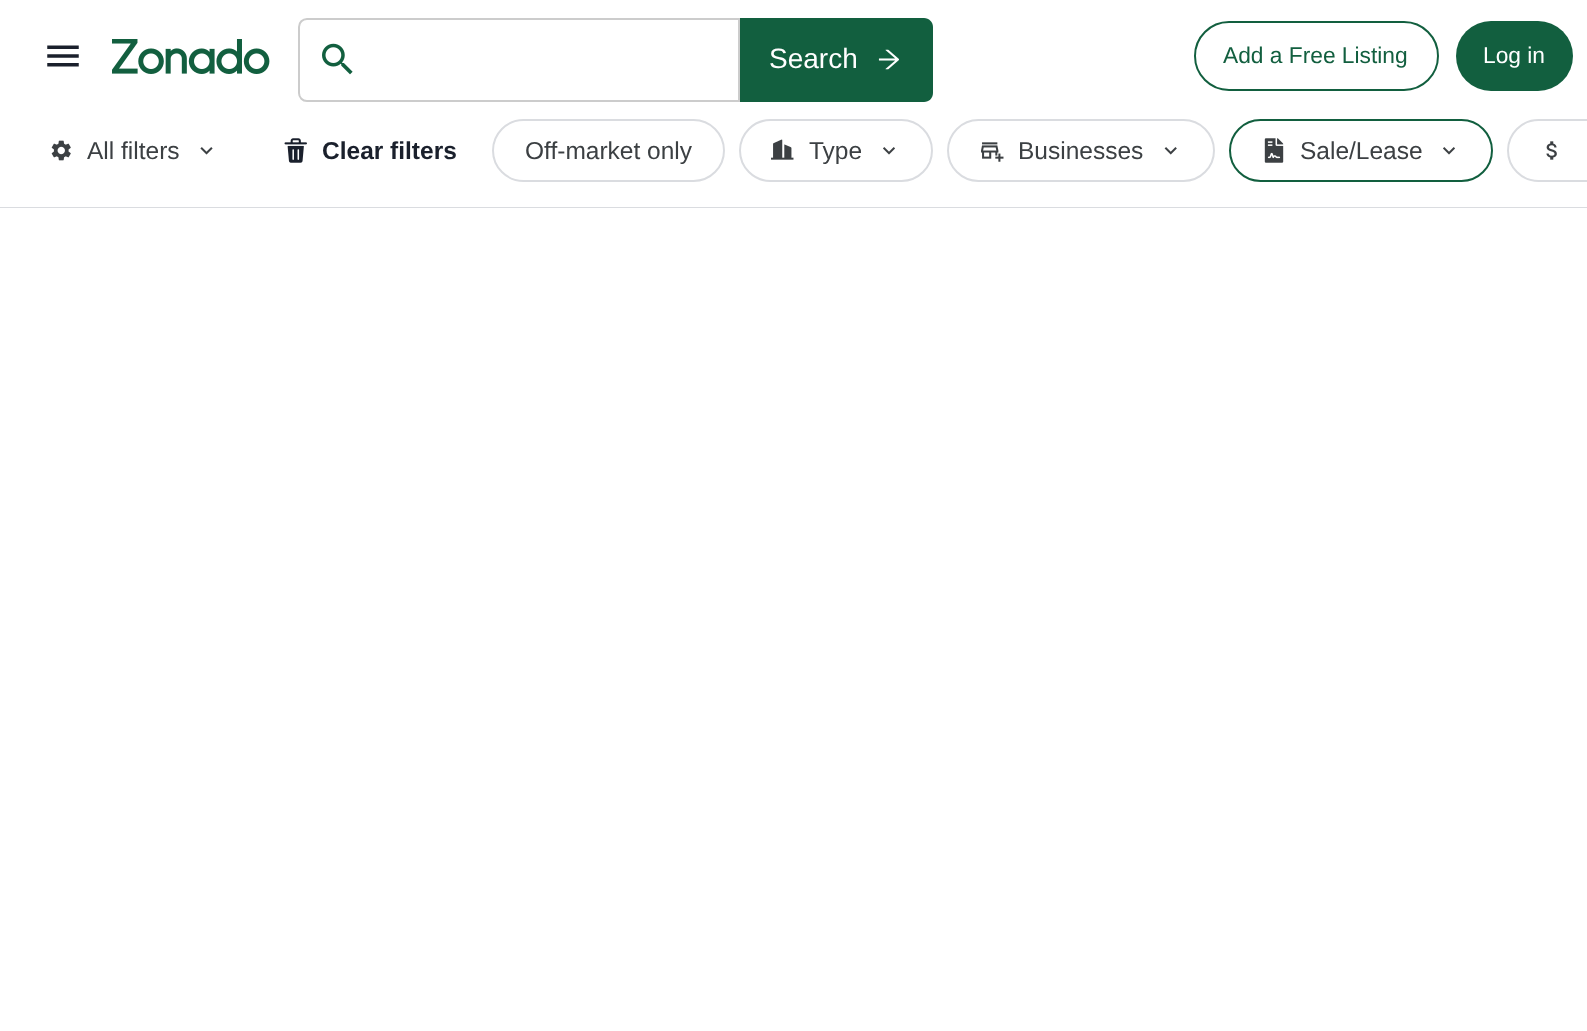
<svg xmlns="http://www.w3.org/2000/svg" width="1587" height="1031">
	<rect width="100%" height="100%" fill="#FFFFFF" />
	<image x="47" y="45" width="32" height="22" href="assets/img1.png" />
	<image x="112" y="39" width="158" height="35" href="assets/img2.png" />
	<rect x="1195" y="22" width="243" height="68" rx="34" fill="none" stroke="#125F3F" stroke-width="2" />
	<text x="1223" y="63" font-family="Liberation Sans" font-size="22.75" fill="#125F3F">Add a Free Listing</text>
	<rect x="1456" y="21" width="117" height="70" rx="35" fill="#125F3F" />
	<text x="1483" y="63" font-family="Liberation Sans" font-size="22.75" fill="#FFFFFF">Log in</text>
	<path d="M307 19H739V101H307C302.5 101 299 97.5 299 93V27C299 22.5 302.5 19 307 19Z" fill="none" stroke="#CCCCCC" stroke-width="2" />
	<image x="322" y="43" width="31" height="32" href="assets/img3.png" />
	<path d="M740 18H924C929 18 933 22 933 27V93C933 98 929 102 924 102H740Z" fill="#125F3F" />
	<text x="769" y="68" font-family="Liberation Sans" font-size="28" fill="#FFFFFF">Search</text>
	<image x="878" y="49" width="21" height="21" href="assets/img4.png" />
	<rect x="0" y="207" width="1587" height="1" fill="#DADCE0" />
	<image x="51" y="140" width="20" height="21" href="assets/img5.png" />
	<text x="87" y="159" font-family="Liberation Sans" font-size="24.5" fill="#3C4043">All filters</text>
	<image x="200" y="147" width="13" height="8" href="assets/img6.png" />
	<image x="284" y="138" width="23" height="25" href="assets/img7.png" />
	<text x="322" y="159" font-family="Liberation Sans" font-size="24.5" font-weight="700" fill="#1A202C">Clear filters</text>
	<rect x="493" y="120" width="231" height="61" rx="30.5" fill="none" stroke="#DADCE0" stroke-width="2" />
	<text x="525" y="159" font-family="Liberation Sans" font-size="24.5" fill="#3C4043">Off-market only</text>
	<rect x="740" y="120" width="192" height="61" rx="30.5" fill="none" stroke="#DADCE0" stroke-width="2" />
	<image x="771" y="139" width="23" height="21" href="assets/img8.png" />
	<text x="809" y="159" font-family="Liberation Sans" font-size="24.5" fill="#3C4043">Type</text>
	<image x="883" y="147" width="12" height="8" href="assets/img9.png" />
	<rect x="948" y="120" width="266" height="61" rx="30.5" fill="none" stroke="#DADCE0" stroke-width="2" />
	<image x="981" y="142" width="23" height="20" href="assets/img10.png" />
	<text x="1018" y="159" font-family="Liberation Sans" font-size="24.5" fill="#3C4043">Businesses</text>
	<image x="1164" y="147" width="13" height="8" href="assets/img11.png" />
	<rect x="1230" y="120" width="262" height="61" rx="30.5" fill="none" stroke="#125F3F" stroke-width="2" />
	<image x="1264" y="138" width="20" height="25" href="assets/img12.png" />
	<text x="1300" y="159" font-family="Liberation Sans" font-size="24.5" fill="#3C4043">Sale/Lease</text>
	<image x="1443" y="147" width="12" height="8" href="assets/img9.png" />
	<rect x="1508" y="120" width="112" height="61" rx="30.5" fill="none" stroke="#DADCE0" stroke-width="2" />
	<image x="1546" y="141" width="11" height="19" href="assets/img13.png" />
</svg>
